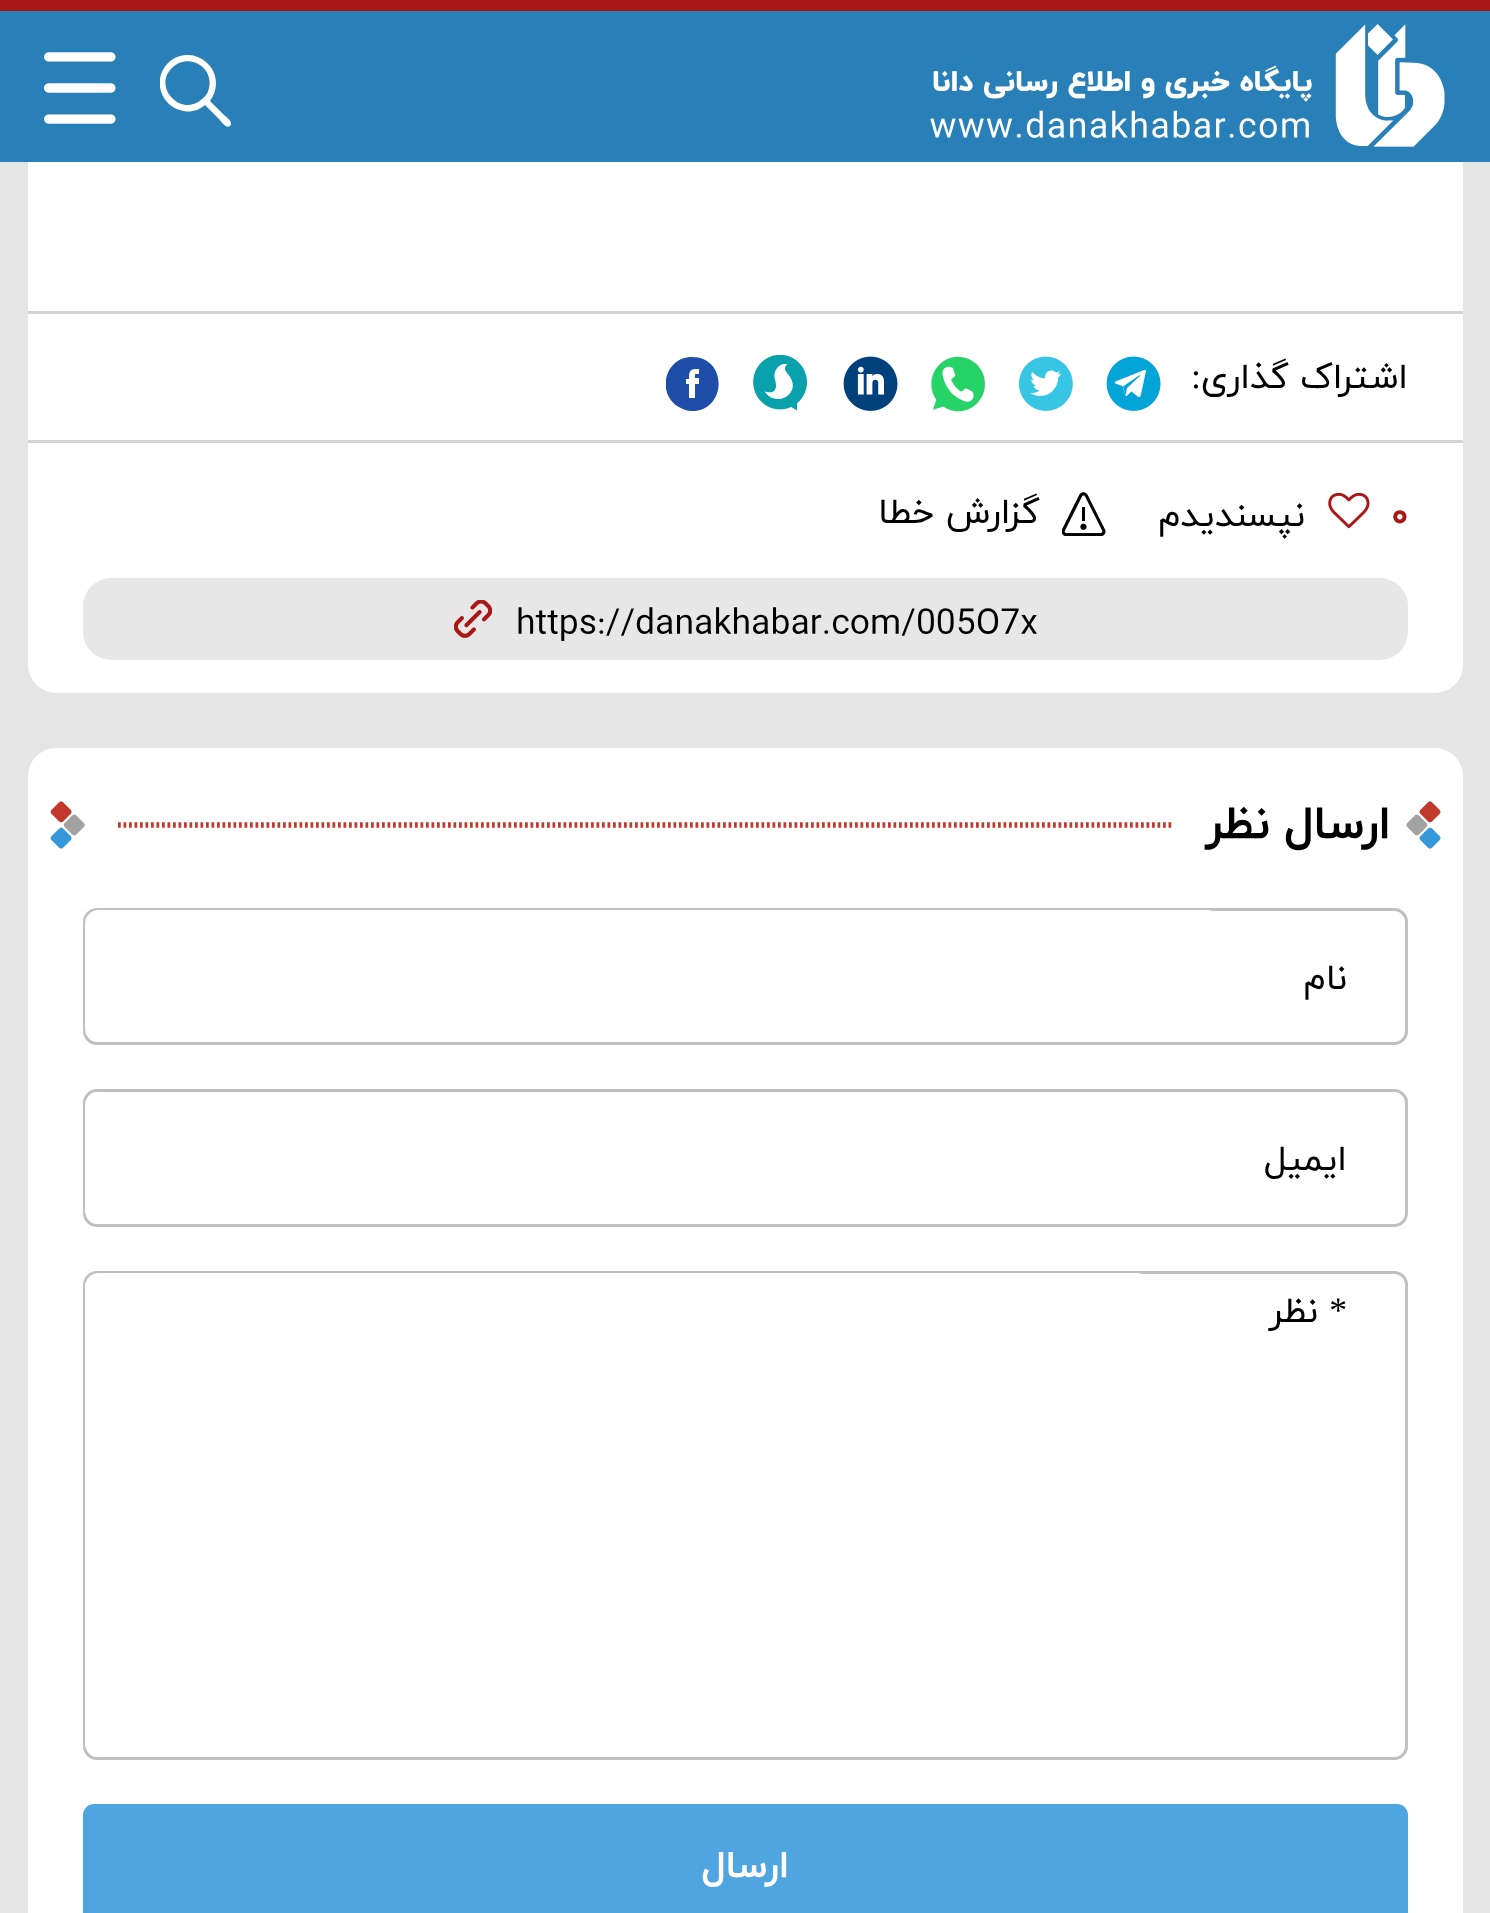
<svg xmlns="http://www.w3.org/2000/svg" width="1490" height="1913">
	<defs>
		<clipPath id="clip1"><rect x="160" y="55" width="71" height="72" /></clipPath>
		<clipPath id="clip2"><rect x="666" y="355" width="55" height="58" /></clipPath>
	</defs>
	<rect width="100%" height="100%" fill="#E5E5E5" />
	<rect x="28" y="-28" width="1435" height="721" rx="28" fill="#FFFFFF" />
	<rect x="0" y="11" width="1490" height="151" fill="#2980B8" />
	<rect x="0" y="0" width="1490" height="11" fill="#A91717" />
	<image x="930" y="24" width="515" height="123" href="assets/img1.png" />
	<g clip-path="url(#clip1)">
		<path d="M210 101L223 114C225 116 234 122 230 126C226 129 221 121 219 119L205 105C194 115 177 113 167 102C157 91 157 74 168 63C178 53 195 52 206 62C218 72 219 89 210 101ZM172 68C152 87 182 118 202 99C206 96 208 93 209 88C214 67 188 52 172 68Z" fill="#FFFFFF" fill-rule="evenodd" />
	</g>
	<image x="44" y="52" width="72" height="72" href="assets/img2.png" />
	<rect x="28" y="311" width="1435" height="3" fill="#D3D3D3" />
	<rect x="28" y="440" width="1435" height="3" fill="#D3D3D3" />
	<text x="1408" y="388" font-family="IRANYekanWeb" font-size="35.75" direction="rtl" fill="#000000">اشتراک گذاری</text>
	<text x="1201" y="388" font-family="Liberation Serif" font-size="35.75" direction="rtl" fill="#000000">:</text>
	<image x="1106" y="356" width="55" height="55" href="assets/img3.png" />
	<image x="1019" y="356" width="54" height="55" href="assets/img4.png" />
	<image x="931" y="356" width="54" height="56" href="assets/img5.png" />
	<image x="843" y="356" width="55" height="55" href="assets/img6.png" />
	<image x="753" y="355" width="54" height="56" href="assets/img7.png" />
	<g clip-path="url(#clip2)">
		<path d="M692 357C666 357 656 391 677 406C682 409 687 411 692 411C727 411 728 357 692 357ZM695 384H699V378H695C695 374 694 374 699 374V369C690 369 689 370 689 379H686V384H689V398H695Z" fill="#1F4EA8" fill-rule="evenodd" />
	</g>
	<text x="1391" y="526" font-family="IRANYekanWeb" font-size="35.75" font-weight="700" fill="#A91717">۰</text>
	<image x="1328" y="492" width="42" height="37" href="assets/img8.png" />
	<text x="1305" y="526" font-family="IRANYekanWeb" font-size="35.75" direction="rtl" fill="#000000">نپسندیدم</text>
	<image x="1062" y="492" width="44" height="44" href="assets/img9.png" />
	<text x="1040" y="523" font-family="IRANYekanWeb" font-size="35.75" direction="rtl" fill="#000000">گزارش خطا</text>
	<rect x="83" y="578" width="1325" height="82" rx="28" fill="#E7E7E7" />
	<text x="516" y="632" font-family="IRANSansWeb" font-size="33" fill="#000000">https://danakhabar.com/005O7x</text>
	<image x="454" y="600" width="38" height="38" href="assets/img10.png" />
	<rect x="28" y="748" width="1435" height="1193" rx="28" fill="#FFFFFF" />
	<image x="1406" y="801" width="35" height="48" href="assets/img11.png" />
	<path d="M118 825H1287" fill="none" stroke="#C0392B" stroke-width="5.5" stroke-dasharray="2.75 2.75" />
	<rect x="1174" y="822" width="113" height="6" fill="#FFFFFF" />
	<text x="1391" y="838" font-family="IRANYekanWeb" font-size="47" font-weight="700" direction="rtl" fill="#000000">ارسال نظر</text>
	<image x="50" y="801" width="35" height="48" href="assets/img12.png" />
	<rect x="84.5" y="909.5" width="1322" height="134" rx="12.5" fill="none" stroke="#C0C0C0" stroke-width="3" />
	<text x="1347" y="989" font-family="IRANYekanWeb" font-size="35.75" direction="rtl" fill="#000000">نام</text>
	<rect x="85" y="910" width="1136" height="132" rx="14" fill="#FFFFFF" />
	<rect x="84.5" y="1090.5" width="1322" height="135" rx="12.5" fill="none" stroke="#C0C0C0" stroke-width="3" />
	<text x="1347" y="1170" font-family="IRANYekanWeb" font-size="35.75" direction="rtl" fill="#000000">ایمیل</text>
	<rect x="85" y="1092" width="1100" height="132" rx="14" fill="#FFFFFF" />
	<rect x="84.5" y="1272.5" width="1322" height="486" rx="12.5" fill="none" stroke="#C0C0C0" stroke-width="3" />
	<text x="1347" y="1322" font-family="Liberation Serif" font-size="35.75" direction="rtl" fill="#000000">*</text>
	<text x="1318" y="1322" font-family="IRANYekanWeb" font-size="35.75" direction="rtl" fill="#000000">نظر</text>
	<rect x="85" y="1273" width="1065" height="484" rx="14" fill="#FFFFFF" />
	<rect x="83" y="1804" width="1325" height="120" rx="11" fill="#4EA5E0" />
	<text x="789" y="1877" font-family="IRANYekanWeb" font-size="38.5" font-weight="700" direction="rtl" fill="#FFFFFF">ارسال</text>
</svg>
